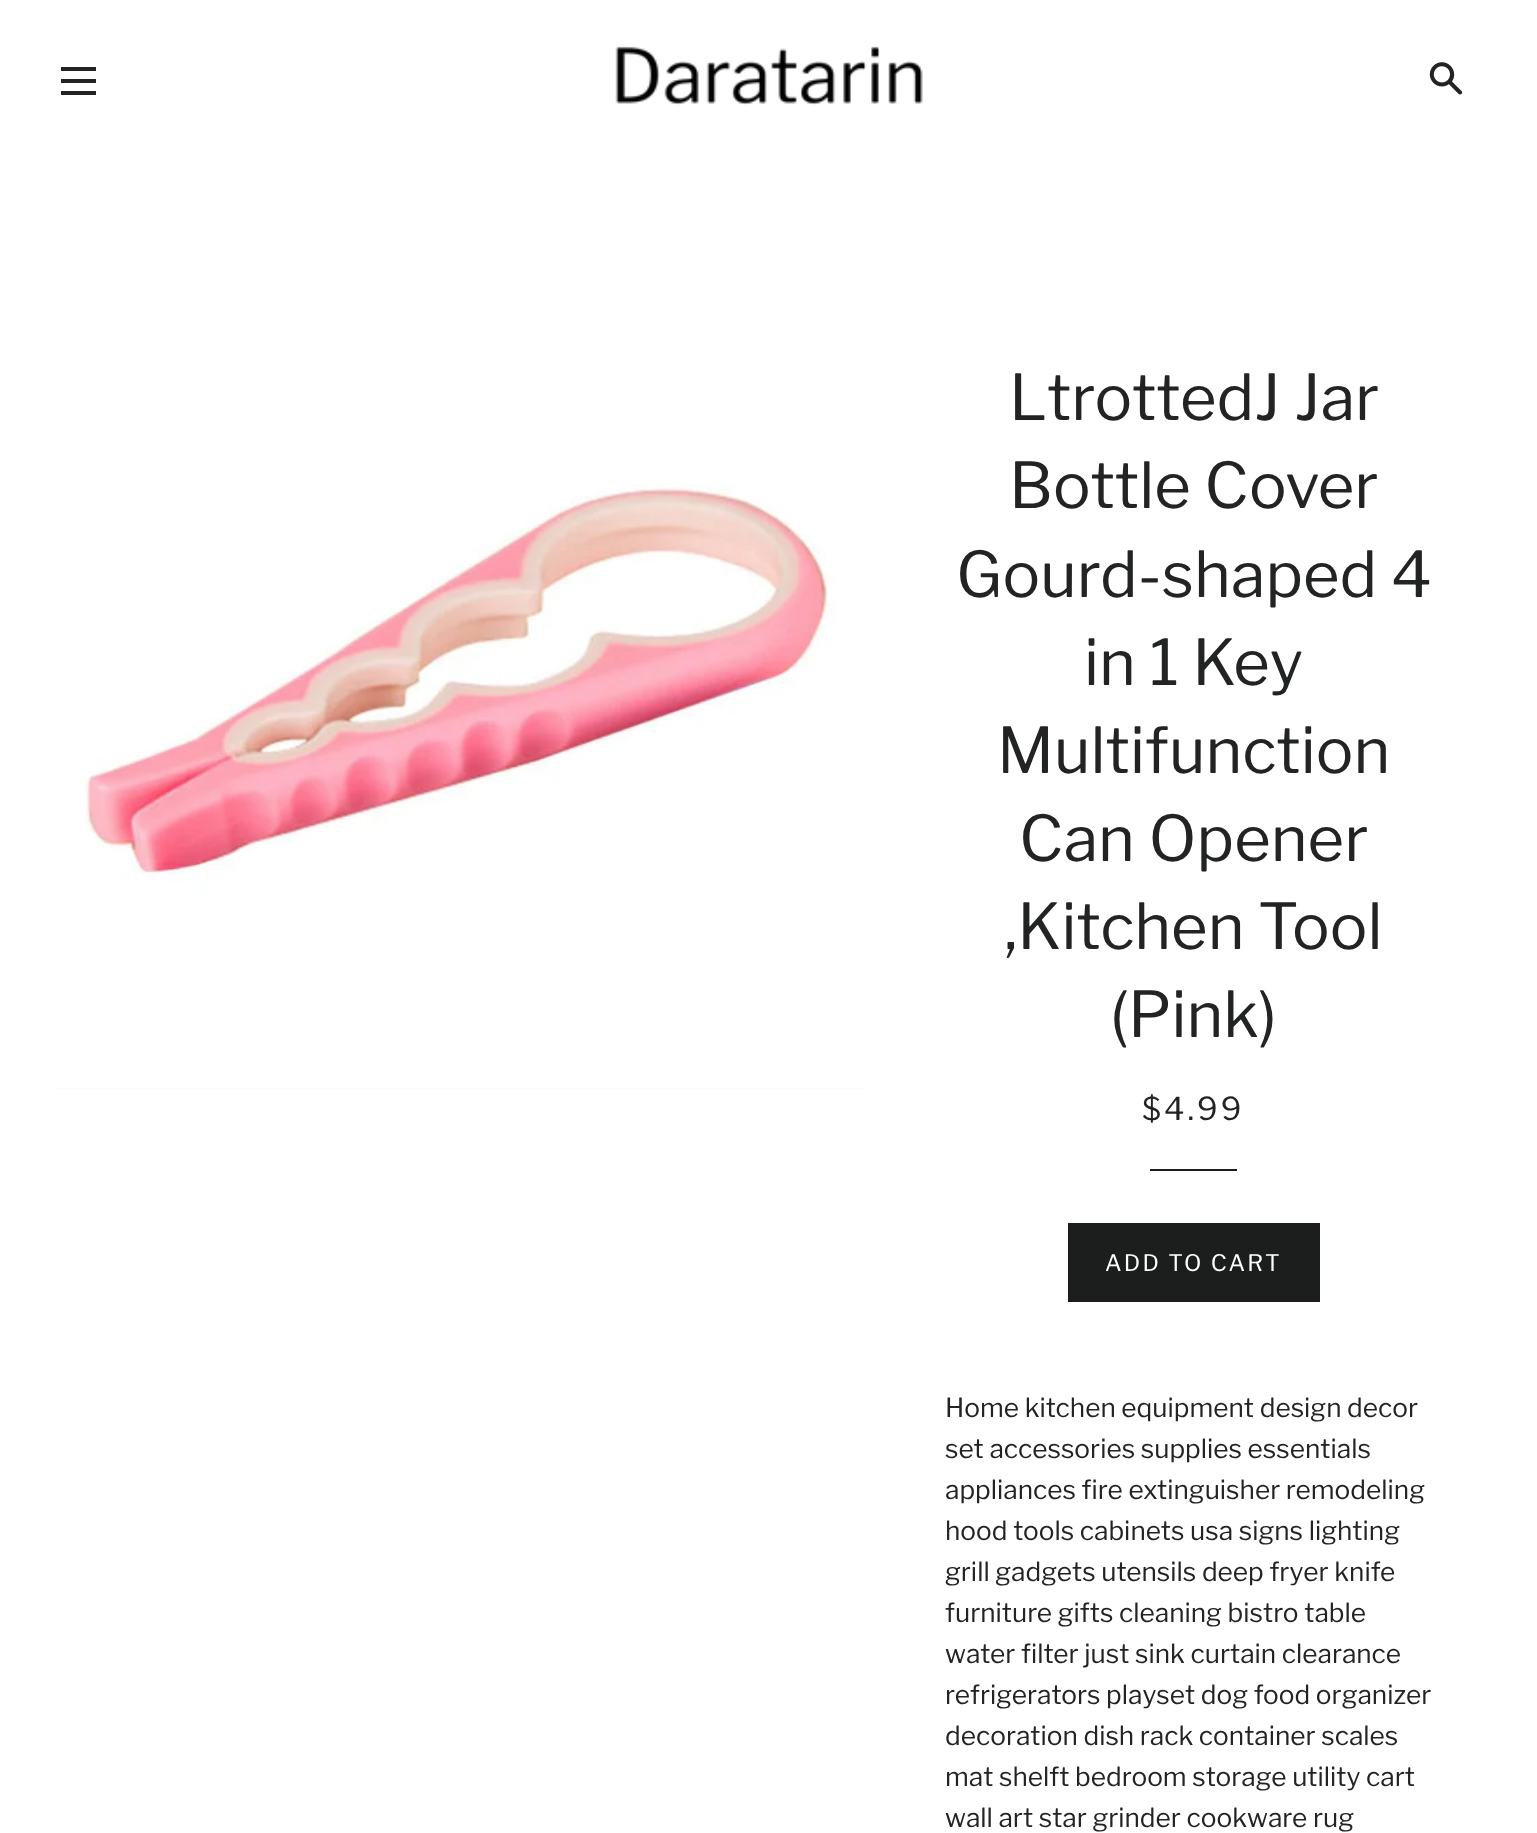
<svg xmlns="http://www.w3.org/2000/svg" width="1537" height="1833">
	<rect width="100%" height="100%" fill="#FFFFFF" />
	<rect x="61" y="67" width="35" height="4" fill="#222323" />
	<rect x="61" y="79" width="35" height="4" fill="#222323" />
	<rect x="61" y="91" width="35" height="4" fill="#222323" />
	<image x="615" y="46" width="308" height="59" href="assets/img1.png" />
	<image x="1429" y="62" width="34" height="33" href="assets/img2.png" />
	<rect x="53" y="1088" width="813" height="1" fill="#F7F7F7" />
	<image x="53" y="275" width="813" height="814" href="assets/img3.png" />
	<g font-family="Libre Franklin" font-size="63" fill="#222323">
		<text x="1009" y="420">LtrottedJ Jar</text>
		<text x="1009" y="508">Bottle Cover</text>
		<text x="956" y="597">Gourd-shaped 4</text>
		<text x="1084" y="685">in 1 Key</text>
		<text x="997" y="773">Multifunction</text>
		<text x="1019" y="861">Can Opener</text>
		<text x="1004" y="949">,Kitchen Tool</text>
		<text x="1110" y="1037">(Pink)</text>
	</g>
	<text x="1142" y="1120" font-family="Libre Franklin" font-size="31.5" letter-spacing="3" fill="#222323">$4.99</text>
	<rect x="1150" y="1169" width="87" height="2" fill="#1C1D1D" />
	<rect x="1068" y="1223" width="252" height="79" fill="#1C1D1D" />
	<text x="1105" y="1271" font-family="Libre Franklin" font-size="22.75" letter-spacing="2.25" fill="#FFFFFF">ADD TO CART</text>
	<g font-family="Libre Franklin" font-size="26.25" fill="#222323">
		<text x="945" y="1417">Home kitchen equipment design decor</text>
		<text x="945" y="1458">set accessories supplies essentials</text>
		<text x="945" y="1499">appliances fire extinguisher remodeling</text>
		<text x="945" y="1540">hood tools cabinets usa signs lighting</text>
		<text x="945" y="1581">grill gadgets utensils deep fryer knife</text>
		<text x="945" y="1622">furniture gifts cleaning bistro table</text>
		<text x="945" y="1663">water filter just sink curtain clearance</text>
		<text x="945" y="1704">refrigerators playset dog food organizer</text>
		<text x="945" y="1745">decoration dish rack container scales</text>
		<text x="945" y="1786">mat shelft bedroom storage utility cart</text>
		<text x="945" y="1827">wall art star grinder cookware rug</text>
	</g>
</svg>
